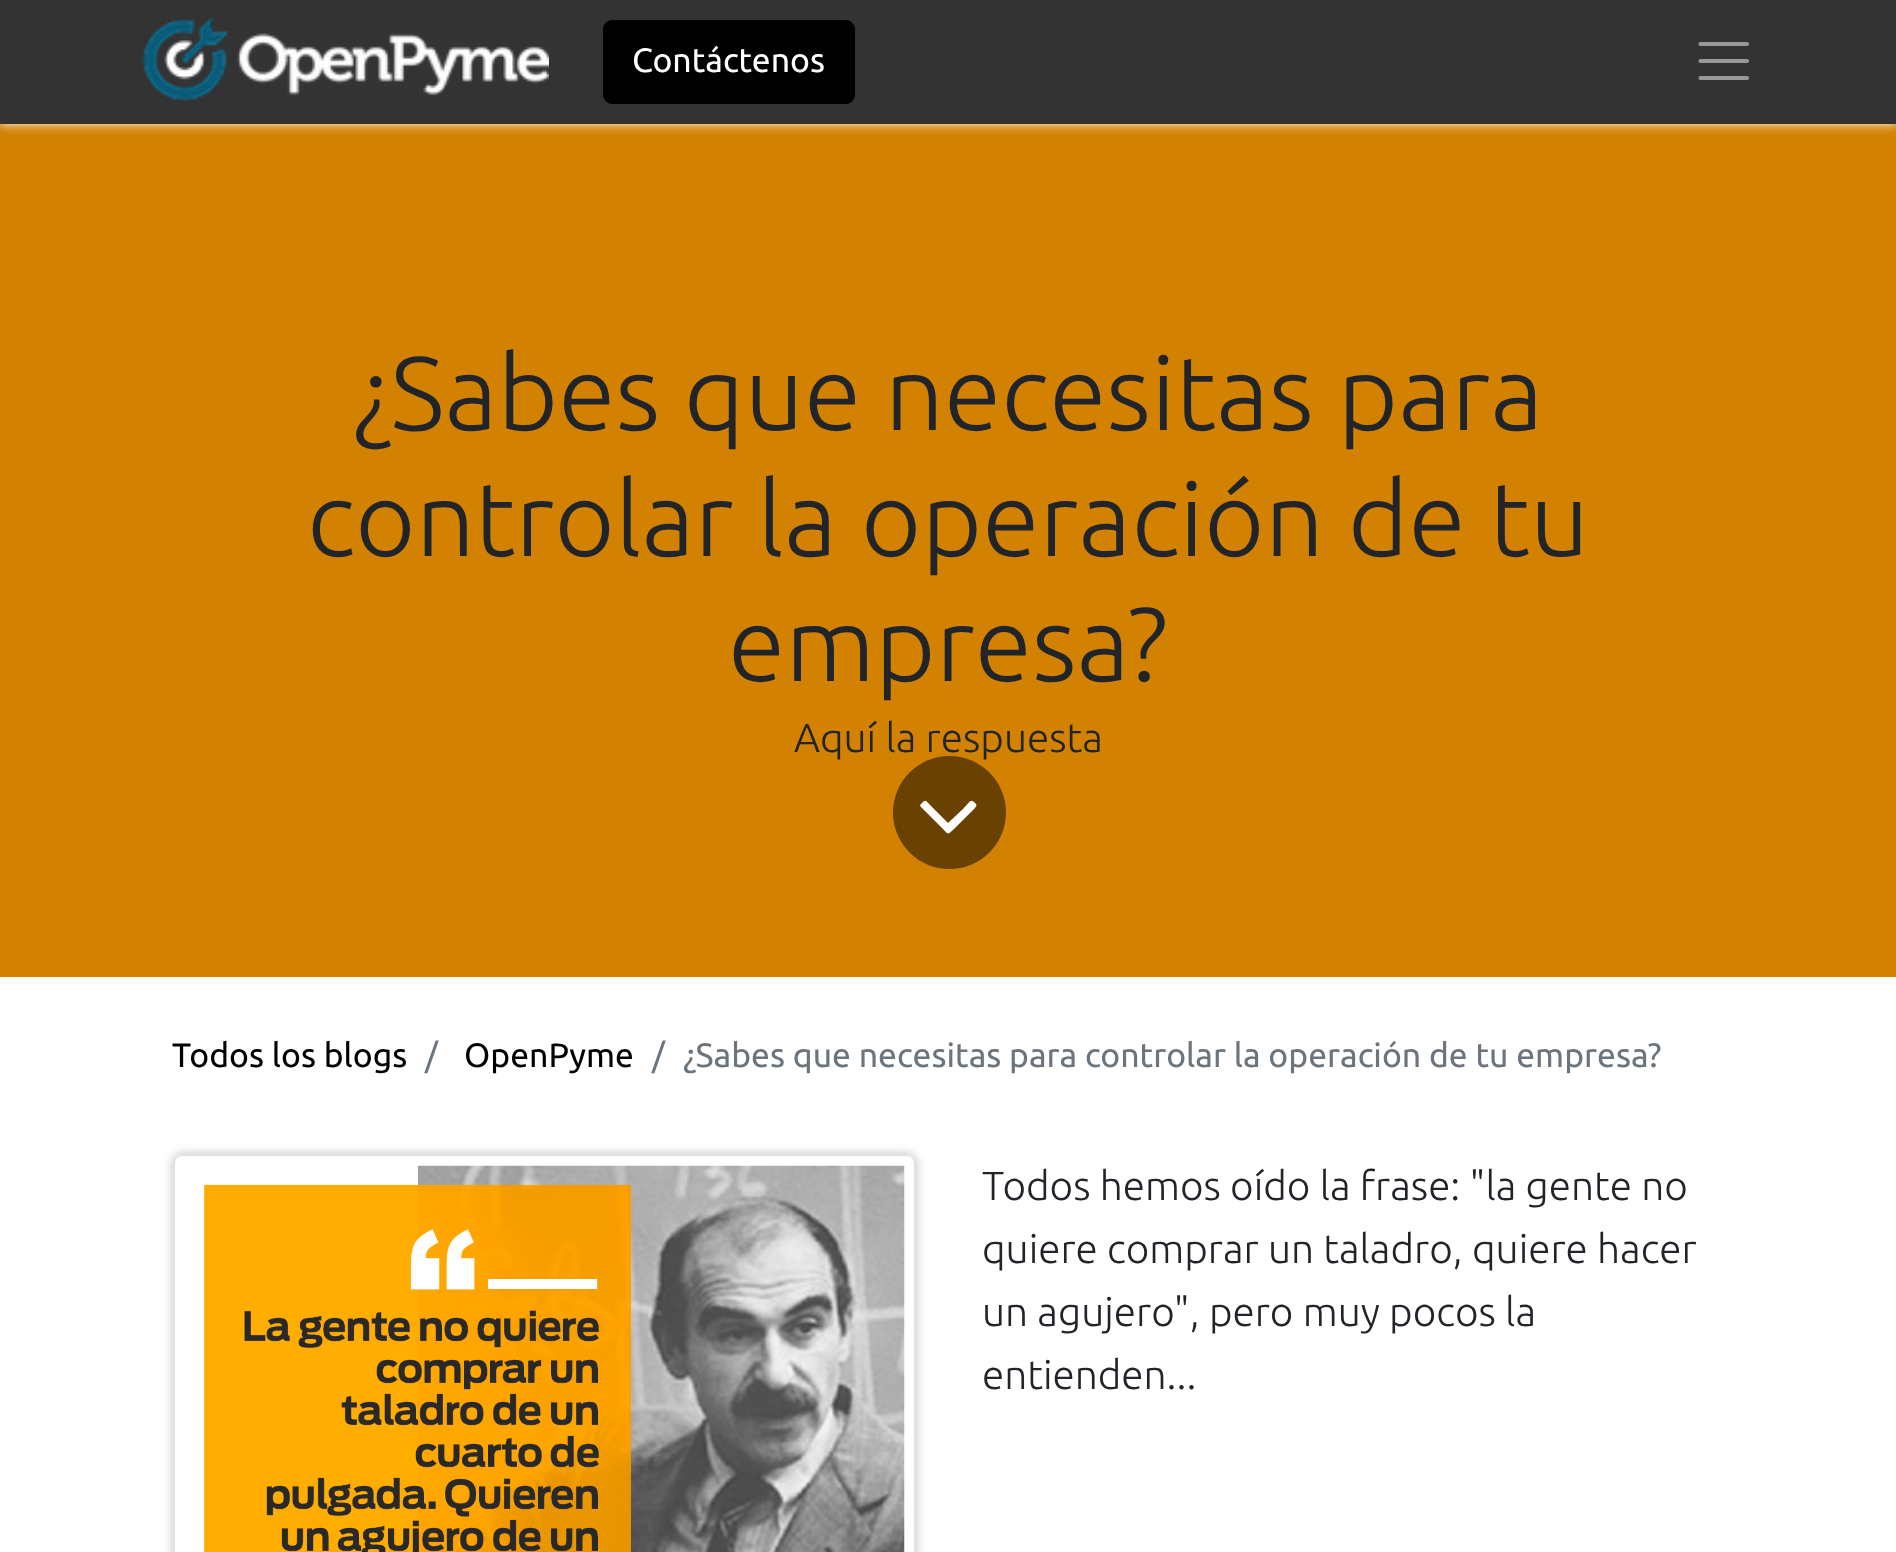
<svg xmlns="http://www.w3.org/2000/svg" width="1896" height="1552">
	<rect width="100%" height="100%" fill="#FFFFFF" />
	<rect x="0" y="124" width="1896" height="853" fill="#D28200" />
	<rect x="0" y="0" width="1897" height="124" fill="#FFFFFF" filter="blur(5.5px)" />
	<rect x="0" y="0" width="1896" height="124" fill="#333333" />
	<image x="141" y="18" width="408" height="84" href="assets/img1.png" />
	<rect x="604" y="21" width="250" height="82" rx="8" fill="#000000" stroke="#000000" stroke-width="2" />
	<text x="632" y="72" font-family="Ubuntu" font-size="33.75" fill="#FFFFFF">Contáctenos</text>
	<path d="M1700.5 44H1747M1700.5 61H1747M1700.5 78H1747" fill="none" stroke="#999999" stroke-width="4.2" stroke-linecap="round" />
	<g font-family="Ubuntu" font-size="104.25" font-weight="300" fill="#212529">
		<text x="353" y="430">¿Sabes que necesitas para</text>
		<text x="307" y="556">controlar la operación de tu</text>
		<text x="728" y="681">empresa?</text>
	</g>
	<text x="794" y="752" font-family="Ubuntu" font-size="40.5" font-weight="300" fill="#212529">Aquí la respuesta</text>
	<circle cx="949.5" cy="812.5" r="56.5" fill="#694100" />
	<path d="M976 804C978 806 972 811 972 811L954 829C947 835 949 835 943 829L921 807C919 805 921 804 922 803C926 799 926 801 930 805L948 823L963 809C971 801 970 798 976 804Z" fill="#FFFFFF" />
	<text x="172" y="1067" font-family="Ubuntu" font-size="33.75" fill="#000000">Todos los blogs</text>
	<text x="425" y="1067" font-family="Ubuntu" font-size="33.75" fill="#6C757D">/</text>
	<text x="464" y="1067" font-family="Ubuntu" font-size="33.75" fill="#000000">OpenPyme</text>
	<g font-family="Ubuntu" font-size="33.75" fill="#6C757D">
		<text x="652" y="1067">/</text>
		<text x="683" y="1067">¿Sabes que necesitas para controlar la operación de tu empresa?</text>
	</g>
	<rect x="173" y="1154" width="743" height="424" rx="9" fill="#000000" fill-opacity="0.25" filter="blur(5.5px)" />
	<path d="M182 1154H907C912 1154 916 1158 916 1163V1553H173V1163C173 1158 177 1154 182 1154Z" fill="#FFFFFF" />
	<rect x="174" y="1155" width="741" height="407" rx="8" fill="none" stroke="#DEE2E6" stroke-width="2" />
	<image x="204" y="1165" width="701" height="387" href="assets/img2.png" />
	<g font-family="Ubuntu" font-size="40.5" font-weight="300" fill="#212529">
		<text x="982" y="1200">Todos hemos oído la frase: "la gente no</text>
		<text x="982" y="1263">quiere comprar un taladro, quiere hacer</text>
		<text x="982" y="1326">un agujero", pero muy pocos la</text>
		<text x="982" y="1389">entienden...</text>
	</g>
</svg>
